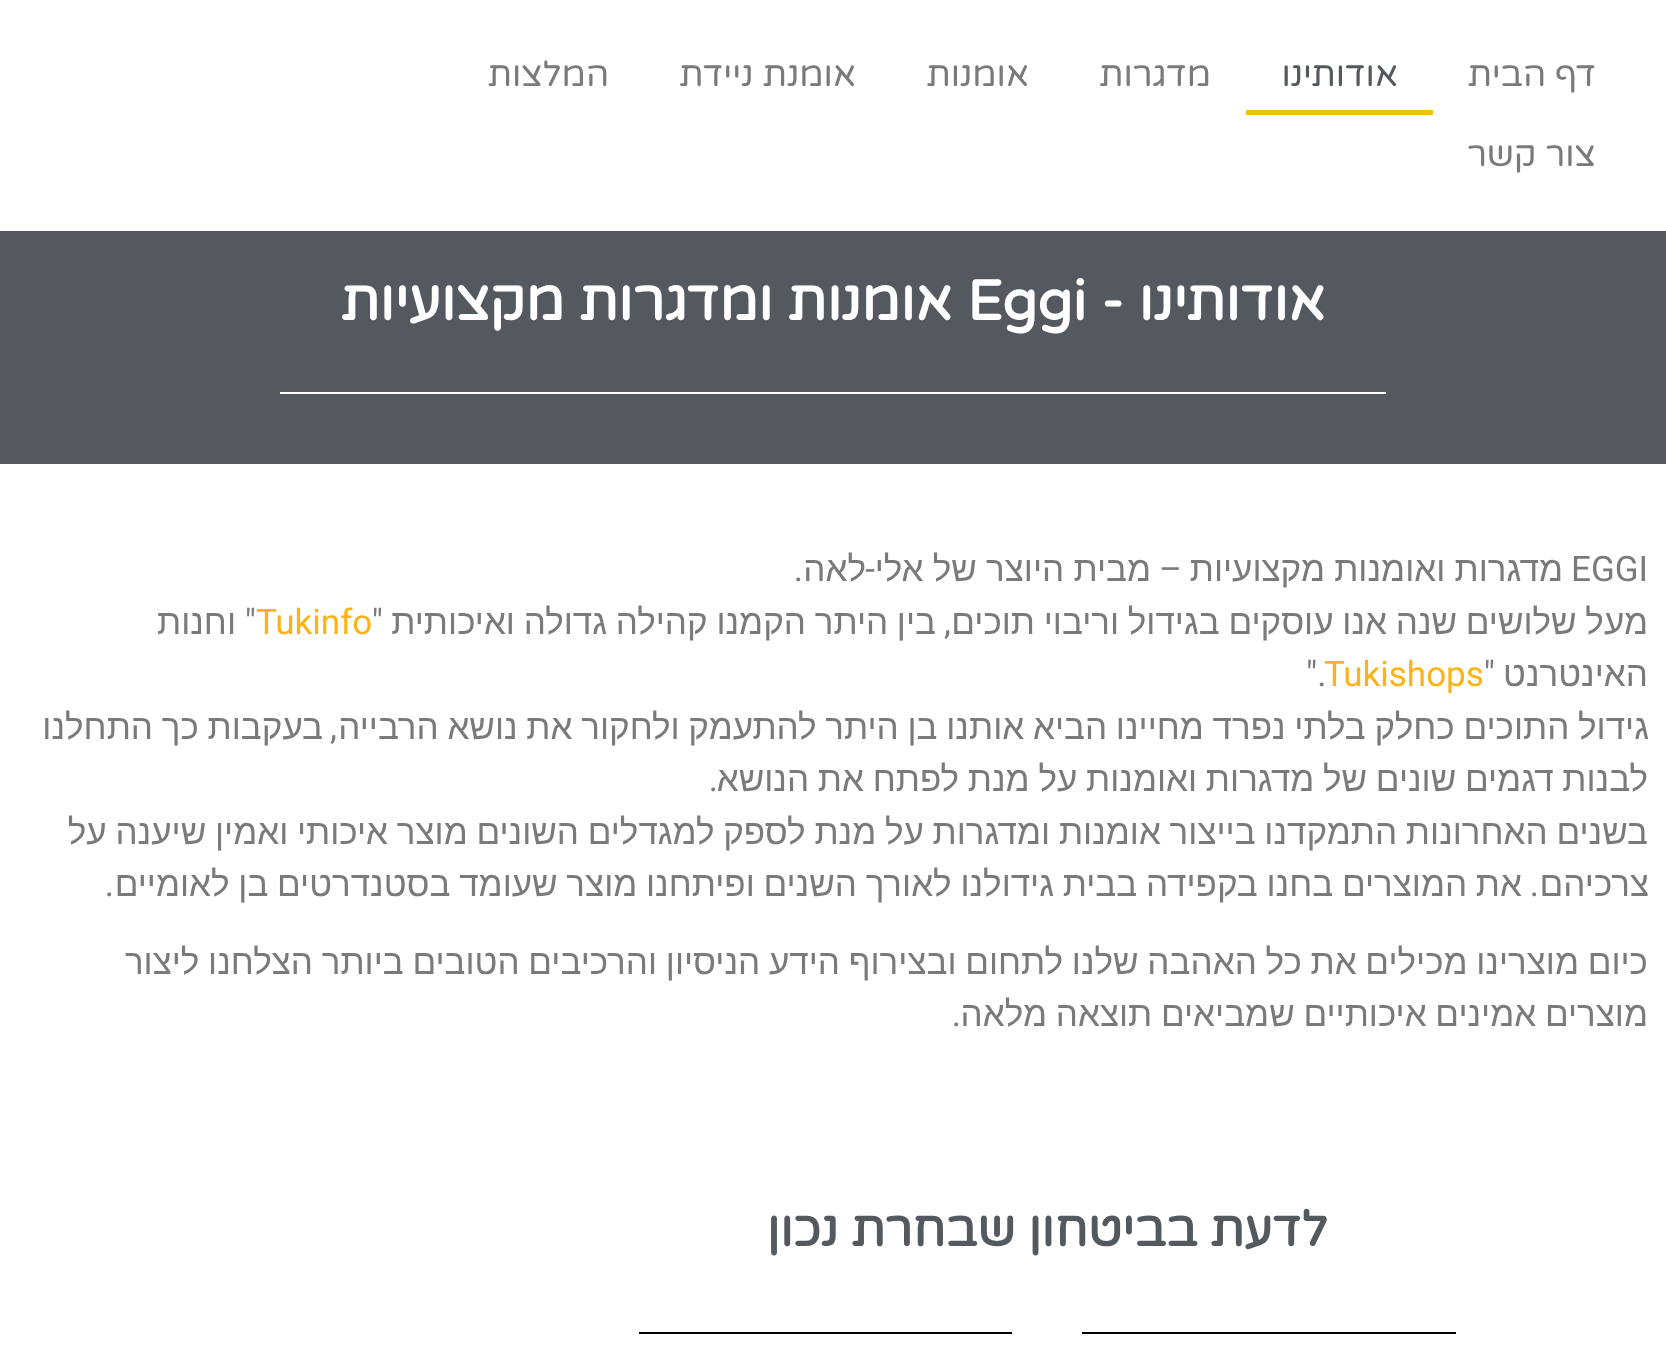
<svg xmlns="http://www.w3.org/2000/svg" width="1666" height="1372">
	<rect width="100%" height="100%" fill="#FFFFFF" />
	<text x="1596" y="86" font-family="Varela Round" font-size="35" direction="rtl" fill="#7A7A7A">דף הבית</text>
	<text x="1398" y="86" font-family="Varela Round" font-size="35" direction="rtl" fill="#54595F">אודותינו</text>
	<rect x="1246" y="110" width="187" height="5" fill="#F2BD19" />
	<g font-family="Varela Round" font-size="35" direction="rtl" fill="#7A7A7A">
		<text x="1211" y="86">מדגרות</text>
		<text x="1029" y="86">אומנות</text>
		<text x="856" y="86">אומנת ניידת</text>
		<text x="609" y="86">המלצות</text>
		<text x="1596" y="166">צור קשר</text>
	</g>
	<rect x="0" y="231" width="1666" height="233" fill="#54595F" />
	<text x="1325" y="320" font-family="Varela Round" font-size="56" font-weight="700" direction="rtl" fill="#FFFFFF">אודותינו -</text>
	<text x="967" y="320" font-family="Varela Round" font-size="56" font-weight="700" fill="#FFFFFF">Eggi</text>
	<text x="952" y="320" font-family="Varela Round" font-size="56" font-weight="700" direction="rtl" fill="#FFFFFF">אומנות ומדגרות מקצועיות</text>
	<rect x="280" y="392" width="1106" height="2" fill="#FFFFFF" />
	<text x="1571" y="581" font-family="Roboto" font-size="35" fill="#7A7A7A">EGGI</text>
	<text x="1563" y="581" word-spacing="-0.5" font-family="Liberation Sans" font-size="35" direction="rtl" fill="#7A7A7A">מדגרות ואומנות מקצועיות</text>
	<text x="1182" y="581" font-family="Roboto" font-size="35" direction="rtl" fill="#7A7A7A">–</text>
	<g font-family="Liberation Sans" font-size="35" direction="rtl" fill="#7A7A7A">
		<text x="1151" y="581" word-spacing="-0.5">מבית היוצר של אלי</text>
		<text x="866" y="581">לאה</text>
	</g>
	<g font-family="Roboto" font-size="35" direction="rtl" fill="#7A7A7A">
		<text x="875" y="581">-</text>
		<text x="803" y="581">.</text>
	</g>
	<g font-family="Liberation Sans" font-size="35" direction="rtl" fill="#7A7A7A">
		<text x="1648" y="634" word-spacing="-1">מעל שלושים שנה אנו עוסקים בגידול וריבוי תוכים</text>
		<text x="936" y="634" word-spacing="-1">בין היתר הקמנו קהילה גדולה ואיכותית</text>
	</g>
	<text x="383" y="634" font-family="Roboto" font-size="35" direction="rtl" fill="#7A7A7A">"</text>
	<text x="256" y="634" font-family="Roboto" font-size="35" fill="#FCB316">Tukinfo</text>
	<g font-family="Roboto" font-size="35" direction="rtl" fill="#7A7A7A">
		<text x="256" y="634">"</text>
		<text x="951" y="634">,</text>
	</g>
	<g font-family="Liberation Sans" font-size="35" direction="rtl" fill="#7A7A7A">
		<text x="236" y="634">וחנות</text>
		<text x="1648" y="686">האינטרנט</text>
	</g>
	<text x="1495" y="686" font-family="Roboto" font-size="35" direction="rtl" fill="#7A7A7A">"</text>
	<text x="1324" y="686" font-family="Roboto" font-size="35" fill="#FCB316">Tukishops</text>
	<text x="1306" y="686" font-family="Roboto" font-size="35" fill="#7A7A7A">".</text>
	<text x="1649" y="739" word-spacing="-1" font-family="Liberation Sans" font-size="35" direction="rtl" fill="#7A7A7A">גידול התוכים כחלק בלתי נפרד מחיינו הביא אותנו בן היתר להתעמק ולחקור את נושא הרבייה</text>
	<text x="337" y="739" font-family="Roboto" font-size="35" direction="rtl" fill="#7A7A7A">,</text>
	<g font-family="Liberation Sans" font-size="35" direction="rtl" fill="#7A7A7A">
		<text x="323" y="739" word-spacing="-1">בעקבות כך התחלנו</text>
		<text x="1648" y="791" word-spacing="-1">לבנות דגמים שונים של מדגרות ואומנות על מנת לפתח את הנושא</text>
	</g>
	<text x="718" y="791" font-family="Roboto" font-size="35" direction="rtl" fill="#7A7A7A">.</text>
	<g font-family="Liberation Sans" font-size="35" direction="rtl" fill="#7A7A7A">
		<text x="1648" y="844" word-spacing="-1">בשנים האחרונות התמקדנו בייצור אומנות ומדגרות על מנת לספק למגדלים השונים מוצר איכותי ואמין שיענה על</text>
		<text x="1649" y="896">צרכיהם</text>
		<text x="1522" y="896" word-spacing="-1">את המוצרים בחנו בקפידה בבית גידולנו לאורך השנים ופיתחנו מוצר שעומד בסטנדרטים בן לאומיים</text>
	</g>
	<g font-family="Roboto" font-size="35" direction="rtl" fill="#7A7A7A">
		<text x="114" y="896">.</text>
		<text x="1539" y="896">.</text>
	</g>
	<g font-family="Liberation Sans" font-size="35" direction="rtl" fill="#7A7A7A">
		<text x="1648" y="974" word-spacing="-1">כיום מוצרינו מכילים את כל האהבה שלנו לתחום ובצירוף הידע הניסיון והרכיבים הטובים ביותר הצלחנו ליצור</text>
		<text x="1648" y="1026" word-spacing="-1">מוצרים אמינים איכותיים שמביאים תוצאה מלאה</text>
	</g>
	<text x="961" y="1026" font-family="Roboto" font-size="35" direction="rtl" fill="#7A7A7A">.</text>
	<text x="1328" y="1246" font-family="Varela Round" font-size="49" font-weight="700" direction="rtl" fill="#54595F">לדעת בביטחון שבחרת נכון</text>
	<rect x="1082" y="1332" width="374" height="2" fill="#000000" />
	<rect x="639" y="1332" width="373" height="2" fill="#000000" />
</svg>
